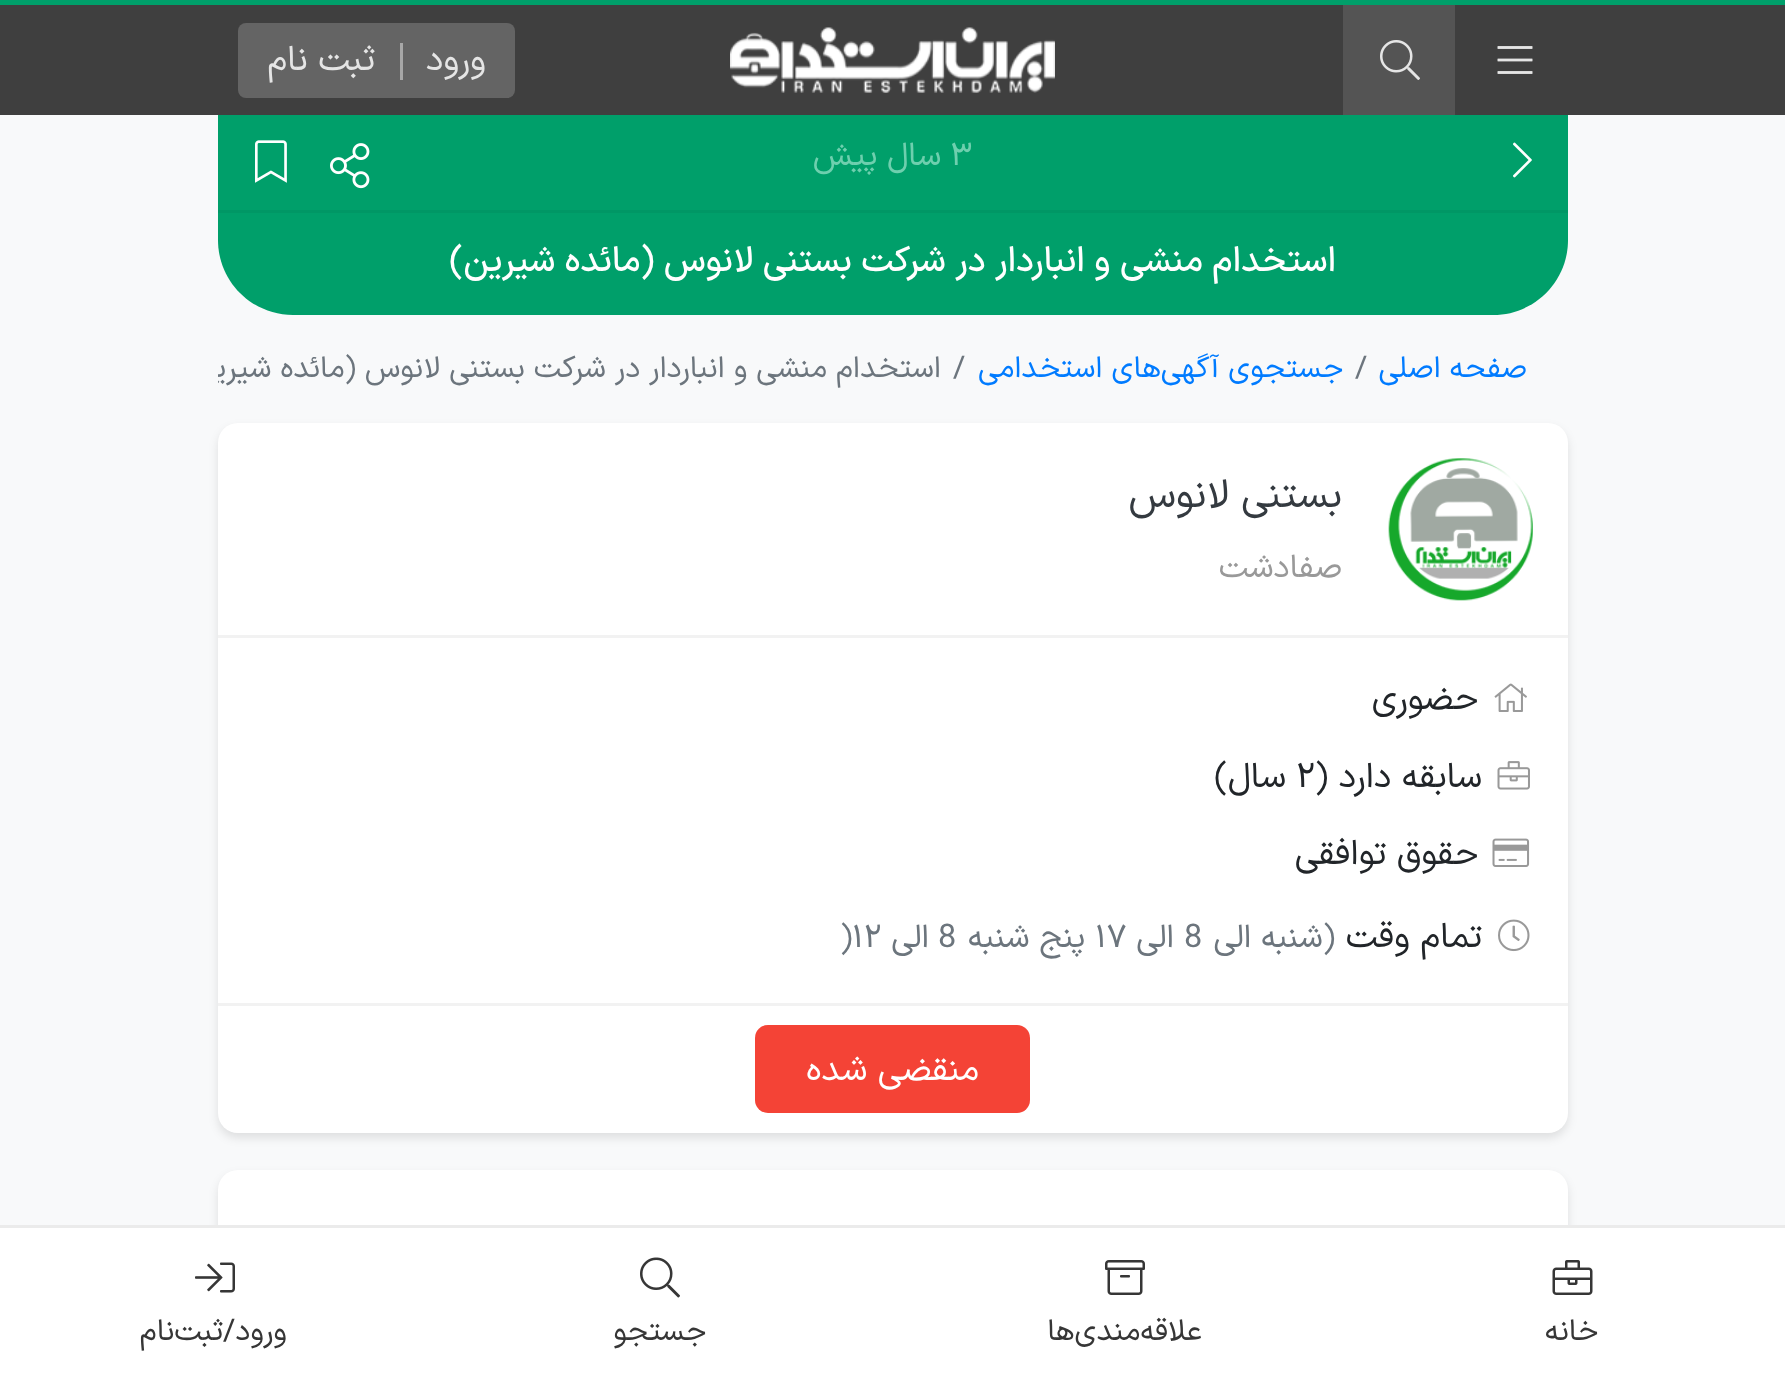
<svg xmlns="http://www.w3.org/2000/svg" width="1785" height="1385">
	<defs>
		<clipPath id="clip1"><rect x="218" y="318" width="1350" height="105" rx="10" /></clipPath>
	</defs>
	<rect width="100%" height="100%" fill="#F8F9FA" />
	<rect x="0" y="0" width="1785" height="5" fill="#009F6A" />
	<path d="M218 108H1568V240C1568 281.5 1534.5 315 1493 315H293C251.5 315 218 281.5 218 240Z" fill="#009F6A" />
	<rect x="0" y="5" width="1785" height="110" fill="#3F3F3F" />
	<image x="1497" y="46" width="36" height="28" href="assets/img1.png" />
	<rect x="1343" y="5" width="112" height="110" fill="#545454" />
	<image x="1380" y="40" width="40" height="40" href="assets/img2.png" />
	<image x="730" y="27" width="325" height="66" href="assets/img3.png" />
	<rect x="238" y="23" width="277" height="75" rx="8" fill="#646464" />
	<text x="486" y="70" font-family="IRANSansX" font-size="35" direction="rtl" fill="#E5E5E5">ورود</text>
	<rect x="400" y="43" width="3" height="37" fill="#A7A7A7" />
	<text x="375" y="70" font-family="IRANSansX" font-size="35" direction="rtl" fill="#E5E5E5">ثبت نام</text>
	<image x="1513" y="142" width="19" height="36" href="assets/img4.png" />
	<text x="950" y="165" font-family="IRANSansX" font-size="32.5" fill="#6ECFAE">۳</text>
	<text x="941" y="165" font-family="IRANSansX" font-size="32.5" direction="rtl" fill="#6ECFAE">سال پیش</text>
	<image x="330" y="143" width="40" height="46" href="assets/img5.png" />
	<image x="255" y="140" width="32" height="43" href="assets/img6.png" />
	<rect x="218" y="210" width="1350" height="3" fill="#009765" />
	<text x="1336" y="271" font-family="IRANSansX" font-size="35" font-weight="500" direction="rtl" fill="#FFFFFF">استخدام منشی و انباردار در شرکت بستنی لانوس (مائده شیرین)</text>
	<text x="1527" y="377" font-family="IRANSansX" font-size="30" direction="rtl" fill="#007BFF">صفحه اصلی</text>
	<text x="1355" y="377" font-family="IRANSansX" font-size="30" fill="#6C757D">/</text>
	<text x="1343" y="377" font-family="IRANSansX" font-size="30" direction="rtl" fill="#007BFF">جستجوی آگهی‌های استخدامی</text>
	<text x="953" y="377" font-family="IRANSansX" font-size="30" fill="#6C757D">/</text>
	<g clip-path="url(#clip1)">
		<text x="941" y="377" font-family="IRANSansX" font-size="30" direction="rtl" fill="#6C757D">استخدام منشی و انباردار در شرکت بستنی لانوس (مائده شیرین)</text>
	</g>
	<rect x="218" y="428" width="1350" height="710" rx="20" fill="#000000" fill-opacity="0.1" filter="blur(5px)" />
	<rect x="218" y="423" width="1350" height="710" rx="20" fill="#FFFFFF" />
	<image x="1388" y="458" width="145" height="143" href="assets/img7.png" />
	<text x="1342" y="507" font-family="IRANSansX" font-size="40" direction="rtl" fill="#343A40">بستنی لانوس</text>
	<text x="1342" y="577" font-family="IRANSansX" font-size="32.5" direction="rtl" fill="#999999">صفادشت</text>
	<rect x="218" y="635" width="1350" height="3" fill="#F2F2F2" />
	<image x="1494" y="683" width="33" height="29" href="assets/img8.png" />
	<text x="1478" y="709" font-family="IRANSansX" font-size="35" direction="rtl" fill="#212529">حضوری</text>
	<image x="1497" y="761" width="33" height="29" href="assets/img9.png" />
	<text x="1482" y="787" font-family="IRANSansX" font-size="35" direction="rtl" fill="#212529">سابقه دارد (</text>
	<text x="1296" y="787" font-family="IRANSansX" font-size="35" fill="#212529">۲</text>
	<text x="1286" y="787" font-family="IRANSansX" font-size="35" direction="rtl" fill="#212529">سال)</text>
	<image x="1492" y="838" width="38" height="29" href="assets/img10.png" />
	<text x="1478" y="864" font-family="IRANSansX" font-size="35" direction="rtl" fill="#212529">حقوق توافقی</text>
	<image x="1498" y="919" width="32" height="33" href="assets/img11.png" />
	<text x="1482" y="947" font-family="IRANSansX" font-size="35" direction="rtl" fill="#212529">تمام وقت</text>
	<text x="1335" y="947" font-family="IRANSansX" font-size="32.5" direction="rtl" fill="#6C757D">(شنبه الی</text>
	<text x="1184" y="947" font-family="IRANSansX" font-size="32.5" fill="#6C757D">8</text>
	<text x="1174" y="947" font-family="IRANSansX" font-size="32.5" direction="rtl" fill="#6C757D">الی</text>
	<text x="1095" y="947" font-family="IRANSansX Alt" font-size="32.5" fill="#6C757D">17</text>
	<text x="1085" y="947" font-family="IRANSansX" font-size="32.5" direction="rtl" fill="#6C757D">پنج شنبه</text>
	<text x="938" y="947" font-family="IRANSansX" font-size="32.5" fill="#6C757D">8</text>
	<text x="929" y="947" font-family="IRANSansX" font-size="32.5" direction="rtl" fill="#6C757D">الی</text>
	<text x="852" y="947" font-family="IRANSansX Alt" font-size="32.5" fill="#6C757D">12</text>
	<text x="840" y="947" font-family="IRANSansX" font-size="32.5" fill="#6C757D">)</text>
	<rect x="218" y="1003" width="1350" height="3" fill="#F2F2F2" />
	<rect x="755" y="1025" width="275" height="88" rx="13" fill="#F44336" />
	<text x="979" y="1080" font-family="IRANSansX" font-size="35" direction="rtl" fill="#FFFFFF">منقضی شده</text>
	<rect x="218" y="1175" width="1350" height="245" rx="20" fill="#000000" fill-opacity="0.1" filter="blur(5px)" />
	<rect x="218" y="1170" width="1350" height="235" rx="20" fill="#FFFFFF" />
	<rect x="0" y="1225" width="1785" height="3" fill="#EBEBEB" />
	<rect x="1568" y="1228" width="217" height="157" fill="#FFFFFF" />
	<image x="1552" y="1260" width="41" height="35" href="assets/img12.png" />
	<text x="1598" y="1340" font-family="IRANSansX" font-size="30" direction="rtl" fill="#363636">خانه</text>
	<image x="1105" y="1260" width="40" height="35" href="assets/img13.png" />
	<text x="1202" y="1340" font-family="IRANSansX" font-size="30" direction="rtl" fill="#363636">علاقه‌مندی‌ها</text>
	<image x="640" y="1257" width="40" height="41" href="assets/img14.png" />
	<text x="706" y="1340" font-family="IRANSansX" font-size="30" direction="rtl" fill="#363636">جستجو</text>
	<rect x="0" y="1228" width="218" height="157" fill="#FFFFFF" />
	<image x="195" y="1262" width="40" height="31" href="assets/img15.png" />
	<text x="287" y="1340" font-family="IRANSansX" font-size="30" direction="rtl" fill="#363636">ورود/ثبت‌نام</text>
</svg>
